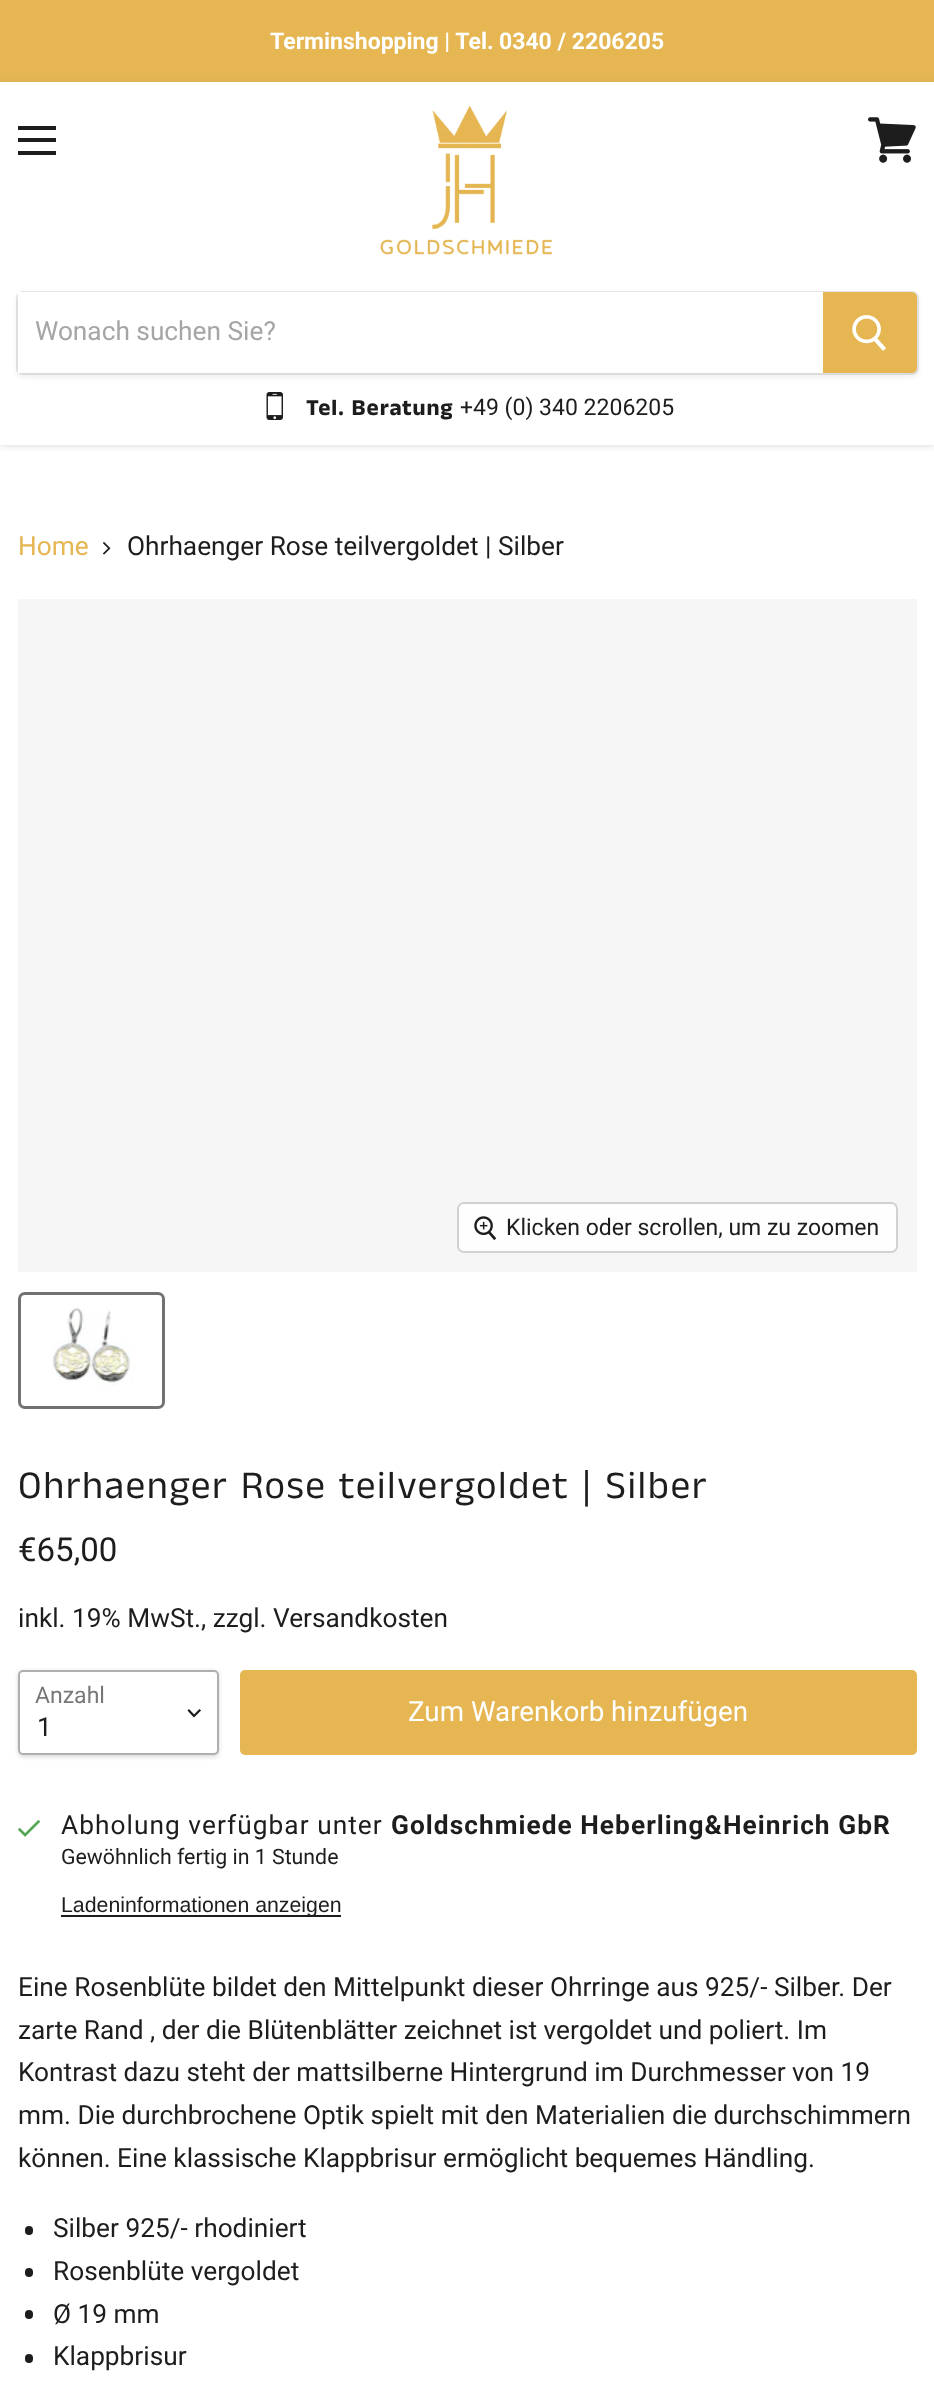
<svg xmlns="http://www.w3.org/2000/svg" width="934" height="2385">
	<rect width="100%" height="100%" fill="#FFFFFF" />
	<rect x="0" y="0" width="934" height="82" fill="#E5B652" />
	<g font-family="Roboto" font-size="23" font-weight="700" fill="#FFFFFF">
		<text x="270" y="49">Terminshopping | Tel.</text>
		<text x="499" y="49">0340 / 2206205</text>
	</g>
	<rect x="0" y="84" width="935" height="362" fill="#808080" fill-opacity="0.25" filter="blur(3.5px)" />
	<rect x="0" y="82" width="934" height="363" fill="#FFFFFF" />
	<rect x="18" y="126" width="38" height="4" fill="#1D1D1D" />
	<rect x="18" y="138" width="38" height="4" fill="#1D1D1D" />
	<rect x="18" y="151" width="38" height="4" fill="#1D1D1D" />
	<image x="868" y="117" width="48" height="46" href="assets/img1.png" />
	<image x="380" y="105" width="173" height="150" href="assets/img2.png" />
	<rect x="16" y="294" width="903" height="84" rx="7" fill="#808080" fill-opacity="0.11" filter="blur(2.5px)" />
	<rect x="17" y="292" width="901" height="82" rx="6" fill="none" stroke="#808080" stroke-opacity="0.2" stroke-width="2" />
	<rect x="18" y="292" width="805" height="81" fill="#FFFFFF" />
	<text x="35" y="340" font-family="Roboto" font-size="26.25" fill="#A5A5A5">Wonach suchen Sie?</text>
	<path d="M824 293H912C914 293 916 295 916 297V368C916 370 914 372 912 372H824Z" fill="#E5B652" stroke="#E5B652" stroke-width="2" />
	<image x="852" y="315" width="34" height="36" href="assets/img3.png" />
	<image x="266" y="392" width="17" height="28" href="assets/img4.png" />
	<text x="306" y="415" font-family="Anek Tamil" font-size="23" font-weight="700" letter-spacing="0.9" fill="#1D1D1D">Tel. Beratung</text>
	<text x="460" y="415" font-family="Roboto" font-size="23" fill="#1D1D1D">+49 (0) 340 2206205</text>
	<text x="18" y="555" font-family="Roboto" font-size="26.25" fill="#E5B652">Home</text>
	<image x="103" y="541" width="8" height="14" href="assets/img5.png" />
	<text x="127" y="555" font-family="Roboto" font-size="26.25" fill="#1D1D1D">Ohrhaenger Rose teilvergoldet | Silber</text>
	<rect x="18" y="599" width="899" height="673" fill="#F6F6F6" />
	<rect x="458" y="1203" width="439" height="49" rx="6" fill="none" stroke="#D1D1D1" stroke-width="2" />
	<rect x="459" y="1204" width="437" height="47" rx="5" fill="#FFFFFF" fill-opacity="0.9" />
	<image x="474" y="1216" width="23" height="25" href="assets/img6.png" />
	<text x="506" y="1235" font-family="Roboto" font-size="23" fill="#1D1D1D">Klicken oder scrollen, um zu zoomen</text>
	<rect x="19.5" y="1293.5" width="144" height="114" rx="5.5" fill="none" stroke="#727272" stroke-width="3" />
	<image x="51" y="1307" width="83" height="79" href="assets/img7.png" />
	<text x="18" y="1498" font-family="Anek Tamil" font-size="39.4" letter-spacing="1.55" fill="#1D1D1D">Ohrhaenger Rose teilvergoldet | Silber</text>
	<text x="18" y="1561" font-family="Roboto" font-size="33" fill="#1D1D1D">€65,00</text>
	<text x="18" y="1627" font-family="Roboto" font-size="26.25" fill="#1D1D1D">inkl. 19% MwSt., zzgl. Versandkosten</text>
	<rect x="18" y="1671" width="201" height="86" rx="5" fill="#000000" fill-opacity="0.15" filter="blur(2px)" />
	<rect x="19" y="1671" width="199" height="83" rx="4" fill="#FFFFFF" stroke="#AFAFAF" stroke-width="2" />
	<text x="35" y="1703" font-family="Roboto" font-size="23" fill="#777777">Anzahl</text>
	<path d="M194 1716L199.5 1710.5M194 1716L189 1710.5" fill="none" stroke="#1D1D1D" stroke-width="2.2" stroke-linecap="square" />
	<text x="37" y="1736" font-family="Roboto" font-size="26.25" fill="#1D1D1D">1</text>
	<rect x="241" y="1671" width="675" height="83" rx="4" fill="#E5B652" stroke="#E5B652" stroke-width="2" />
	<text x="408" y="1721" font-family="Roboto" font-size="27.75" fill="#FFFFFF">Zum Warenkorb hinzufügen</text>
	<image x="18" y="1819" width="22" height="18" href="assets/img8.png" />
	<text x="61" y="1834" font-family="Roboto" font-size="26.25" letter-spacing="1.05" fill="#1D1D1D">Abholung verfügbar unter</text>
	<text x="391" y="1834" font-family="Roboto" font-size="26.25" font-weight="700" letter-spacing="1.05" fill="#1D1D1D">Goldschmiede Heberling&amp;Heinrich GbR</text>
	<text x="61" y="1864" font-family="Roboto" font-size="21.3" fill="#1D1D1D">Gewöhnlich fertig in 1 Stunde</text>
	<rect x="61" y="1915" width="280" height="2" fill="#1D1D1D" />
	<text x="61" y="1912" font-family="Liberation Sans" font-size="21.3" fill="#1D1D1D">Ladeninformationen anzeigen</text>
	<g font-family="Roboto" font-size="26.25" fill="#1D1D1D">
		<text x="18" y="1996">Eine Rosenblüte bildet den Mittelpunkt dieser Ohrringe aus 925/- Silber. Der</text>
		<text x="18" y="2039">zarte Rand , der die Blütenblätter zeichnet ist vergoldet und poliert. Im</text>
		<text x="18" y="2081">Kontrast dazu steht der mattsilberne Hintergrund im Durchmesser von 19</text>
		<text x="18" y="2124">mm. Die durchbrochene Optik spielt mit den Materialien die durchschimmern</text>
		<text x="18" y="2167">können. Eine klassische Klappbrisur ermöglicht bequemes Händling.</text>
	</g>
	<rect x="25" y="2226" width="8" height="9" rx="4" fill="#1D1D1D" />
	<text x="53" y="2237" font-family="Roboto" font-size="26.25" fill="#1D1D1D">Silber 925/- rhodiniert</text>
	<rect x="25" y="2268" width="8" height="9" rx="4" fill="#1D1D1D" />
	<text x="53" y="2280" font-family="Roboto" font-size="26.25" fill="#1D1D1D">Rosenblüte vergoldet</text>
	<rect x="25" y="2310" width="8" height="9" rx="4" fill="#1D1D1D" />
	<text x="53" y="2323" font-family="Roboto" font-size="26.25" fill="#1D1D1D">Ø 19 mm</text>
	<rect x="25" y="2354" width="8" height="9" rx="4" fill="#1D1D1D" />
	<text x="53" y="2365" font-family="Roboto" font-size="26.25" fill="#1D1D1D">Klappbrisur</text>
</svg>
